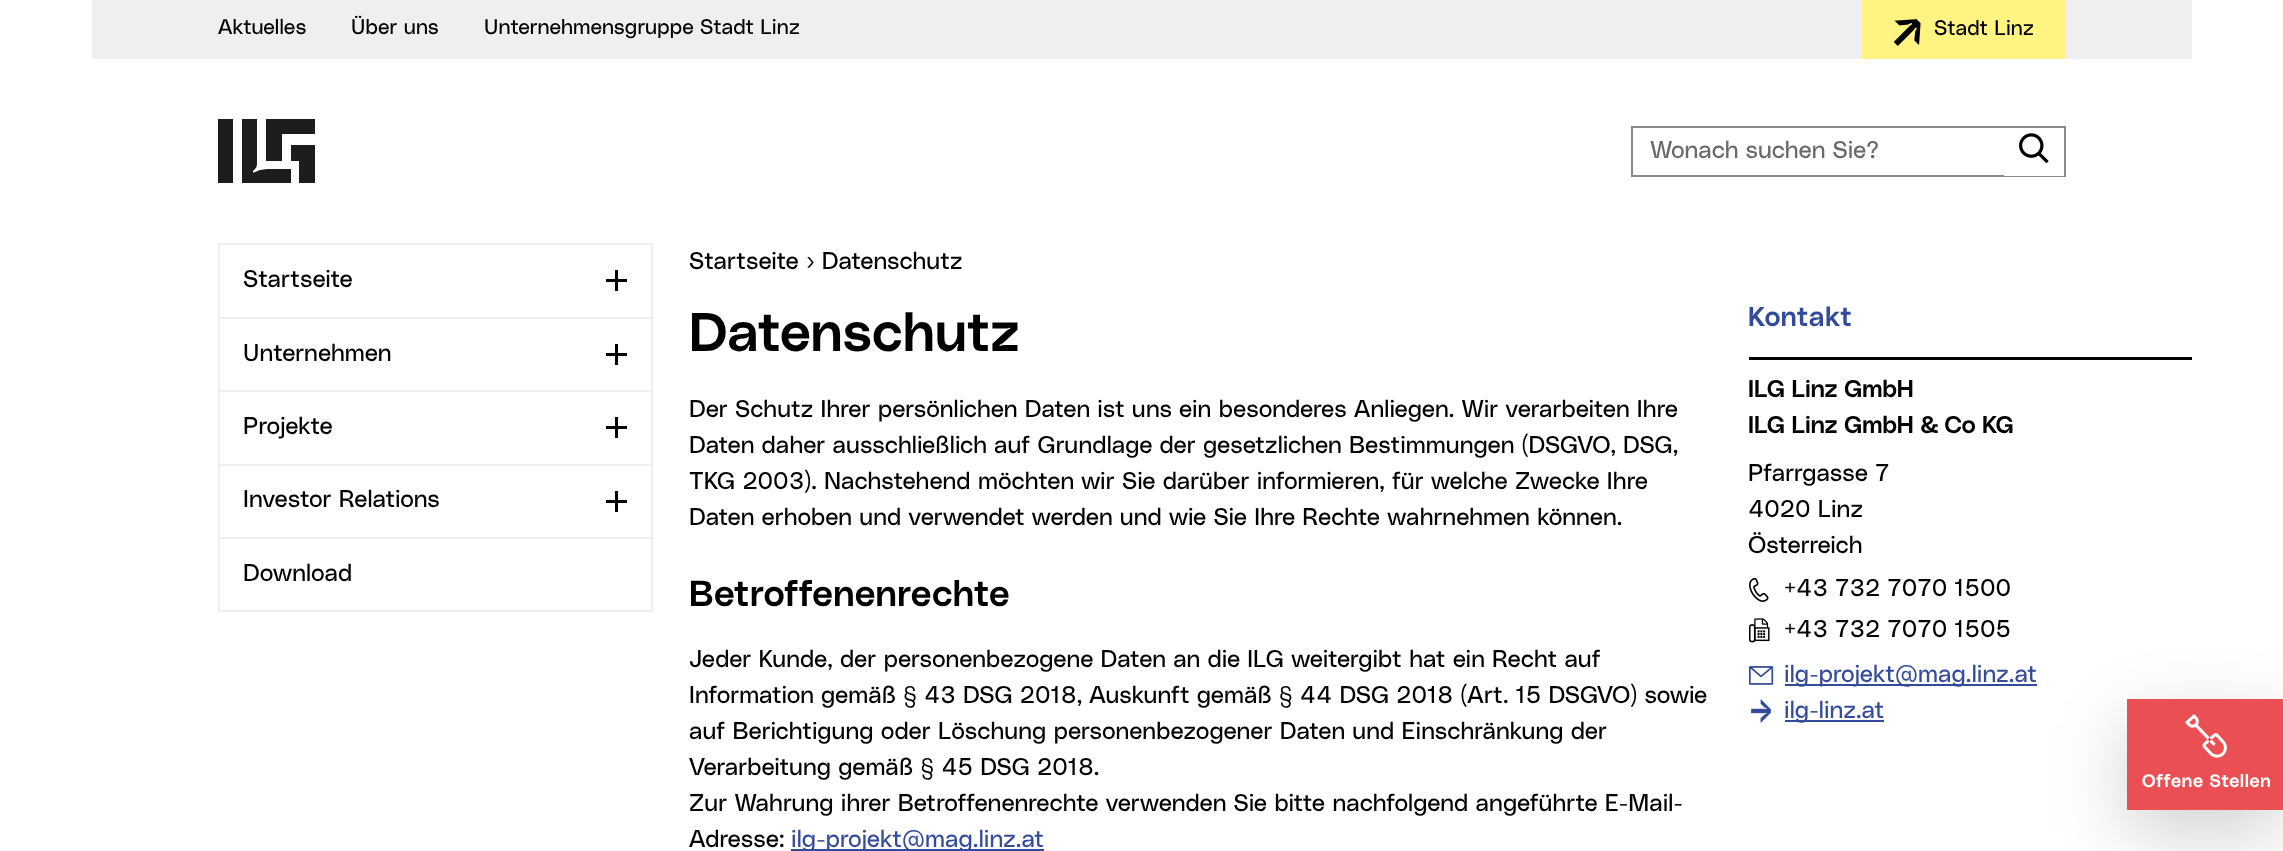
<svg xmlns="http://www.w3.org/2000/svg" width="2283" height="851">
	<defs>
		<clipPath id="clip1"><rect x="218" y="119" width="202" height="64" /></clipPath>
	</defs>
	<rect width="100%" height="100%" fill="#FFFFFF" />
	<rect x="92" y="0" width="2100" height="59" fill="#EFEFEF" />
	<g font-family="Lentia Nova" font-size="21" fill="#000000">
		<text x="218" y="34">Aktuelles</text>
		<text x="351" y="34">Über uns</text>
		<text x="484" y="34">Unternehmensgruppe Stadt Linz</text>
	</g>
	<rect x="1862" y="0" width="204" height="59" fill="#FFF381" />
	<image x="1893" y="19" width="28" height="27" href="assets/img1.png" />
	<text x="1934" y="35" font-family="Lentia Nova" font-size="21" fill="#000000">Stadt Linz</text>
	<g clip-path="url(#clip1)">
		<path d="M315 156V183H299V161H291V145H315ZM266 161H282V134H315V118H266ZM233 118H218V183H233ZM267 169L260 170C258 170 254 174 253 172V171L255 169C257 167 257 165 257 162V118H242V183H291V169Z" fill="#1D1D1B" fill-rule="evenodd" />
	</g>
	<rect x="1632" y="127" width="433" height="49" fill="none" stroke="#8A8A8A" stroke-width="2" />
	<text x="1650" y="158" font-family="Lentia Nova" font-size="24" fill="#696969">Wonach suchen Sie?</text>
	<rect x="2004" y="175" width="60" height="1" fill="#FFFFFF" />
	<image x="2019" y="133" width="30" height="31" href="assets/img2.png" />
	<rect x="218" y="243" width="435" height="2" fill="#EFEFEF" />
	<rect x="651" y="243" width="2" height="74" fill="#EFEFEF" />
	<rect x="218" y="243" width="2" height="74" fill="#EFEFEF" />
	<text x="243" y="287" font-family="Lentia Nova" font-size="24" fill="#000000">Startseite</text>
	<rect x="615" y="270" width="3" height="21" fill="#000000" />
	<rect x="606" y="279" width="21" height="3" fill="#000000" />
	<rect x="218" y="317" width="435" height="2" fill="#EFEFEF" />
	<rect x="651" y="317" width="2" height="73" fill="#EFEFEF" />
	<rect x="218" y="317" width="2" height="73" fill="#EFEFEF" />
	<text x="243" y="361" font-family="Lentia Nova" font-size="24" fill="#000000">Unternehmen</text>
	<rect x="615" y="344" width="3" height="21" fill="#000000" />
	<rect x="606" y="353" width="21" height="3" fill="#000000" />
	<rect x="218" y="390" width="435" height="2" fill="#EFEFEF" />
	<rect x="651" y="390" width="2" height="74" fill="#EFEFEF" />
	<rect x="218" y="390" width="2" height="74" fill="#EFEFEF" />
	<text x="243" y="434" font-family="Lentia Nova" font-size="24" fill="#000000">Projekte</text>
	<rect x="615" y="417" width="3" height="21" fill="#000000" />
	<rect x="606" y="426" width="21" height="3" fill="#000000" />
	<rect x="218" y="464" width="435" height="2" fill="#EFEFEF" />
	<rect x="651" y="464" width="2" height="73" fill="#EFEFEF" />
	<rect x="218" y="464" width="2" height="73" fill="#EFEFEF" />
	<text x="243" y="507" font-family="Lentia Nova" font-size="24" fill="#000000">Investor Relations</text>
	<rect x="615" y="491" width="3" height="21" fill="#000000" />
	<rect x="606" y="500" width="21" height="3" fill="#000000" />
	<rect x="219" y="538" width="433" height="73" fill="none" stroke="#EFEFEF" stroke-width="2" />
	<g font-family="Lentia Nova" font-size="24" fill="#000000">
		<text x="243" y="581">Download</text>
		<text x="689" y="269">Startseite › Datenschutz</text>
	</g>
	<text x="689" y="351" font-family="Lentia Nova" font-size="54" font-weight="600" letter-spacing="0.75" fill="#000000">Datenschutz</text>
	<g font-family="Lentia Nova" font-size="24" fill="#000000">
		<text x="689" y="417">Der Schutz Ihrer persönlichen Daten ist uns ein besonderes Anliegen. Wir verarbeiten Ihre</text>
		<text x="689" y="453">Daten daher ausschließlich auf Grundlage der gesetzlichen Bestimmungen (DSGVO, DSG,</text>
		<text x="689" y="489">TKG 2003). Nachstehend möchten wir Sie darüber informieren, für welche Zwecke Ihre</text>
		<text x="689" y="525">Daten erhoben und verwendet werden und wie Sie Ihre Rechte wahrnehmen können.</text>
	</g>
	<text x="689" y="606" font-family="Lentia Nova" font-size="36" font-weight="600" letter-spacing="0.75" fill="#000000">Betroffenenrechte</text>
	<g font-family="Lentia Nova" font-size="24" fill="#000000">
		<text x="689" y="667">Jeder Kunde, der personenbezogene Daten an die ILG weitergibt hat ein Recht auf</text>
		<text x="689" y="703">Information gemäß § 43 DSG 2018, Auskunft gemäß § 44 DSG 2018 (Art. 15 DSGVO) sowie</text>
		<text x="689" y="739">auf Berichtigung oder Löschung personenbezogener Daten und Einschränkung der</text>
		<text x="689" y="775">Verarbeitung gemäß § 45 DSG 2018.</text>
		<text x="689" y="811">Zur Wahrung ihrer Betroffenenrechte verwenden Sie bitte nachfolgend angeführte E-Mail-</text>
		<text x="689" y="847">Adresse:</text>
	</g>
	<rect x="791" y="849" width="253" height="2" fill="#344A9A" />
	<text x="791" y="847" font-family="Lentia Nova" font-size="24" fill="#344A9A">ilg-projekt@mag.linz.at</text>
	<text x="1748" y="326" font-family="Lentia Nova" font-size="27" font-weight="600" letter-spacing="0.75" fill="#344A9A">Kontakt</text>
	<rect x="1749" y="357" width="443" height="3" fill="#000000" />
	<g font-family="Lentia Nova" font-size="24" font-weight="600" fill="#000000">
		<text x="1748" y="397">ILG Linz GmbH</text>
		<text x="1748" y="433">ILG Linz GmbH &amp; Co KG</text>
	</g>
	<g font-family="Lentia Nova" font-size="24" fill="#000000">
		<text x="1748" y="481">Pfarrgasse 7</text>
		<text x="1748" y="517">4020 Linz</text>
		<text x="1748" y="553">Österreich</text>
	</g>
	<image x="1749" y="577" width="20" height="25" href="assets/img3.png" />
	<text x="1784" y="596" font-family="Lentia Nova" font-size="24" fill="#000000">+43 732 7070 1500</text>
	<image x="1749" y="618" width="21" height="25" href="assets/img4.png" />
	<text x="1784" y="637" font-family="Lentia Nova" font-size="24" fill="#000000">+43 732 7070 1505</text>
	<image x="1749" y="666" width="25" height="19" href="assets/img5.png" />
	<rect x="1785" y="684" width="252" height="2" fill="#344A9A" />
	<text x="1784" y="682" font-family="Lentia Nova" font-size="24" fill="#344A9A">ilg-projekt@mag.linz.at</text>
	<image x="1751" y="699" width="20" height="24" href="assets/img6.png" />
	<rect x="1785" y="720" width="99" height="2" fill="#344A9A" />
	<text x="1784" y="718" font-family="Lentia Nova" font-size="24" fill="#344A9A">ilg-linz.at</text>
	<rect x="2127" y="723" width="156" height="111" fill="#000000" fill-opacity="0.18" filter="blur(36px)" />
	<rect x="2127" y="699" width="156" height="111" fill="#EA4F53" />
	<image x="2185" y="714" width="42" height="44" href="assets/img7.png" />
	<text x="2142" y="787" font-family="Lentia Nova" font-size="18" font-weight="600" letter-spacing="0.75" fill="#FFFFFF">Offene Stellen</text>
</svg>
